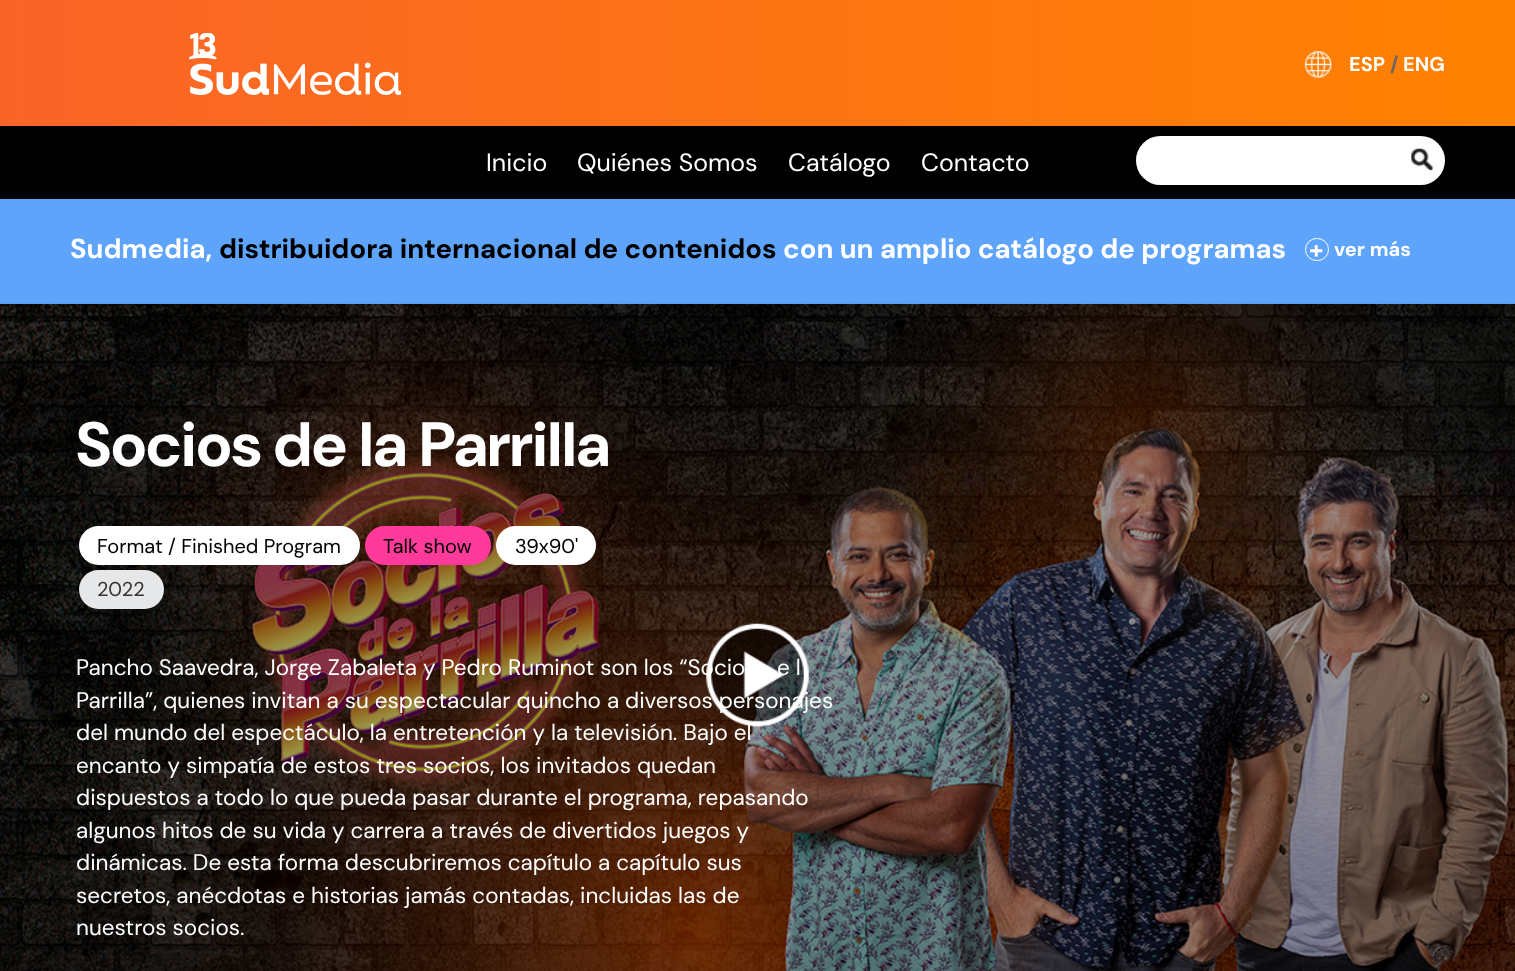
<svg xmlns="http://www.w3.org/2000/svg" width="1515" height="971">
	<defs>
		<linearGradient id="g1" gradientUnits="userSpaceOnUse" x1="0" y1="63" x2="1515" y2="63"><stop offset="0" stop-color="#FA6428" /><stop offset="1" stop-color="#FF8200" /></linearGradient>
	</defs>
	<rect width="100%" height="100%" fill="#000000" />
	<rect x="0" y="0" width="1515" height="126" fill="url(#g1)" />
	<image x="189" y="33" width="212" height="62" href="assets/img1.png" />
	<image x="1304" y="51" width="28" height="27" href="assets/img2.png" />
	<text x="1349" y="71" font-family="DM Sans" font-size="20" font-weight="700" fill="#FFFFFF">ESP</text>
	<text x="1390" y="71" font-family="DM Sans" font-size="20" font-weight="700" fill="#666666">/</text>
	<text x="1403" y="71" font-family="DM Sans" font-size="20" font-weight="700" fill="#FFFFFF">ENG</text>
	<g font-family="DM Sans" font-size="25" fill="#FFFFFF">
		<text x="486" y="171">Inicio</text>
		<text x="577" y="171">Quiénes Somos</text>
		<text x="788" y="171">Catálogo</text>
		<text x="921" y="171">Contacto</text>
	</g>
	<rect x="1136" y="136" width="309" height="49" rx="24.5" fill="#FFFFFF" />
	<image x="1411" y="148" width="22" height="23" href="assets/img3.png" />
	<rect x="0" y="199" width="1515" height="105" fill="#5EA4FB" />
	<text x="70" y="258" font-family="'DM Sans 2'" font-size="27.5" font-weight="700" fill="#FFFFFF">Sudmedia,</text>
	<text x="219" y="258" font-family="'DM Sans 2'" font-size="27.5" font-weight="700" fill="#000000">distribuidora internacional de contenidos</text>
	<text x="783" y="258" font-family="'DM Sans 2'" font-size="27.5" font-weight="700" fill="#FFFFFF">con un amplio catálogo de programas</text>
	<rect x="1305.5" y="238.5" width="23" height="22" rx="11" fill="none" stroke="#FFFFFF" />
	<text x="1309" y="258" font-family="'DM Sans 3'" font-size="25" font-weight="700" fill="#FFFFFF">+</text>
	<text x="1334" y="256" font-family="DM Sans" font-size="20" font-weight="700" fill="#FFFFFF">ver más</text>
	<image x="0" y="303" width="1515" height="668" href="assets/img4.png" />
	<image x="706" y="623" width="103" height="104" href="assets/img5.png" />
	<text x="76" y="466" font-family="'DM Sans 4'" font-size="62.5" font-weight="700" fill="#FFFFFF">Socios de la Parrilla</text>
	<rect x="79" y="526" width="281" height="39" rx="19.5" fill="#FFFFFF" />
	<text x="97" y="553" font-family="'DM Sans 2'" font-size="20" fill="#000000">Format / Finished Program</text>
	<rect x="365" y="526" width="126" height="39" rx="19.5" fill="#FF3A9A" />
	<text x="383" y="553" font-family="'DM Sans 2'" font-size="20" fill="#000000">Talk show</text>
	<rect x="496" y="526" width="100" height="39" rx="19.5" fill="#FFFFFF" />
	<text x="515" y="553" font-family="'DM Sans 2'" font-size="20" fill="#000000">39x90'</text>
	<rect x="79" y="570" width="85" height="39" rx="19.5" fill="#E6E7E8" />
	<text x="97" y="596" font-family="'DM Sans 2'" font-size="20" fill="#333333">2022</text>
	<g font-family="'DM Sans 3'" font-size="22.5" fill="#FFFFFF">
		<text x="76" y="675">Pancho Saavedra, Jorge Zabaleta y Pedro Ruminot son los “Socio</text>
		<text x="777" y="675">e l</text>
		<text x="76" y="708">Parrilla”, quienes invitan a su espectacular quincho a diversos personajes</text>
		<text x="76" y="740">del mundo del espectáculo, la entretención y la televisión. Bajo el</text>
		<text x="76" y="773">encanto y simpatía de estos tres socios, los invitados quedan</text>
		<text x="76" y="805">dispuestos a todo lo que pueda pasar durante el programa, repasando</text>
		<text x="76" y="838">algunos hitos de su vida y carrera a través de divertidos juegos y</text>
		<text x="76" y="870">dinámicas. De esta forma descubriremos capítulo a capítulo sus</text>
		<text x="76" y="903">secretos, anécdotas e historias jamás contadas, incluidas las de</text>
		<text x="76" y="935">nuestros socios.</text>
	</g>
</svg>
